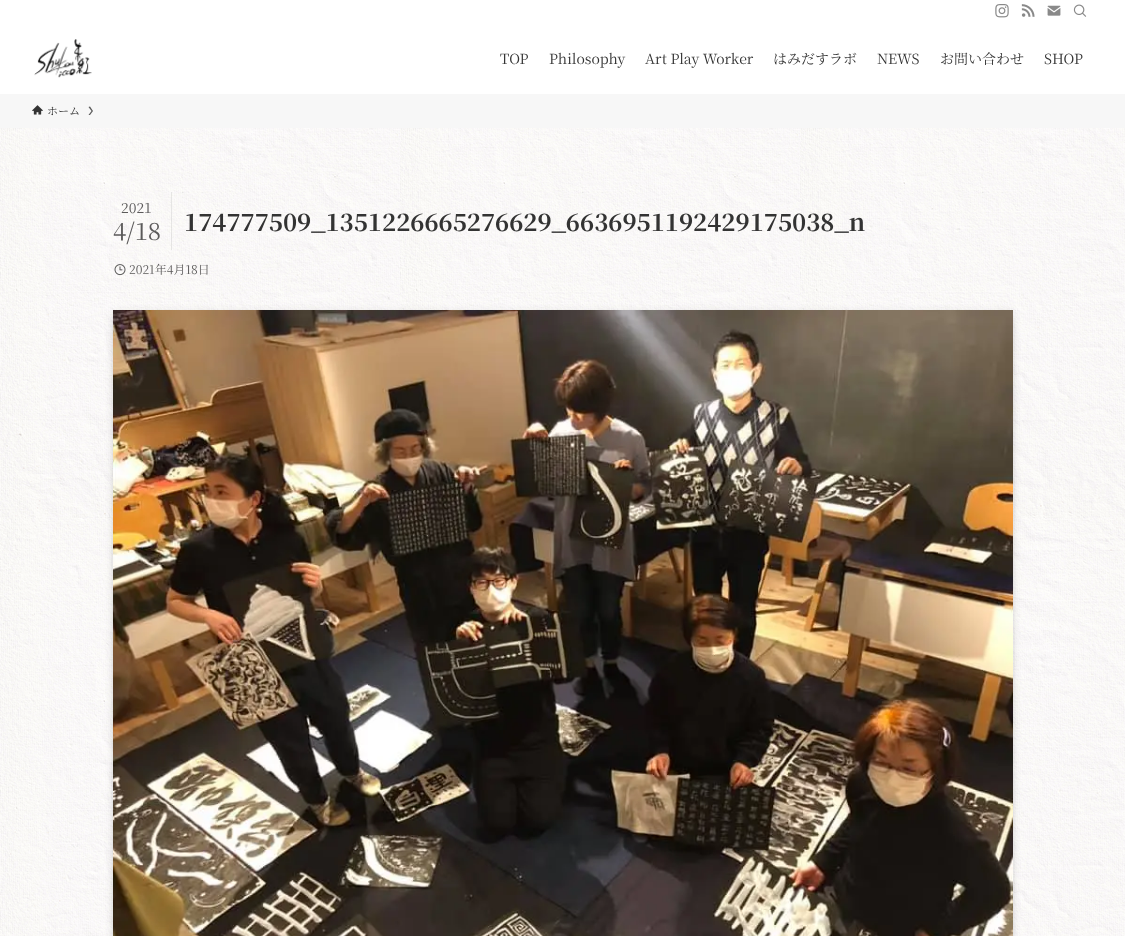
<svg xmlns="http://www.w3.org/2000/svg" width="1125" height="936">
	<rect width="100%" height="100%" fill="#FFFFFF" />
	<image x="0" y="128" width="1125" height="808" href="assets/img1.png" />
	<image x="995" y="4" width="14" height="14" href="assets/img2.png" />
	<image x="1021" y="4" width="14" height="13" href="assets/img3.png" />
	<image x="1047" y="5" width="14" height="11" href="assets/img4.png" />
	<image x="1073" y="4" width="14" height="13" href="assets/img5.png" />
	<image x="34" y="39" width="58" height="39" href="assets/img6.png" />
	<g font-family="Noto Serif JP" font-size="14" fill="#333333">
		<text x="500" y="64">TOP</text>
		<text x="549" y="64">Philosophy</text>
		<text x="645" y="64">Art Play Worker</text>
		<text x="773" y="64">はみだすラボ</text>
		<text x="877" y="64">NEWS</text>
		<text x="940" y="64">お問い合わせ</text>
		<text x="1044" y="64">SHOP</text>
	</g>
	<rect x="0" y="94" width="1125" height="34" fill="#F7F7F7" />
	<image x="32" y="105" width="11" height="10" href="assets/img7.png" />
	<text x="47" y="115" font-family="Noto Serif JP" font-size="11" fill="#333333">ホーム</text>
	<path d="M90 106.5L88.5 107L91.5 111L88.5 115H90L93 111Z" fill="#5A5A5A" />
	<rect x="171" y="192" width="1" height="58" fill="#C7C7C7" fill-opacity="0.4" />
	<text x="121" y="213" font-family="Noto Serif JP" font-size="14" fill="#5B5A5A">2021</text>
	<text x="113" y="240" font-family="Noto Serif JP" font-size="24" fill="#5B5A5A">4/18</text>
	<text x="184" y="231" font-family="Noto Serif JP" font-size="24" font-weight="700" fill="#333333">174777509_1351226665276629_6636951192429175038_n</text>
	<image x="114" y="264" width="12" height="12" href="assets/img8.png" />
	<text x="129" y="274" font-family="Noto Serif JP" font-size="12" fill="#5B5A5A">2021年4月18日</text>
	<rect x="117" y="318" width="892" height="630" fill="#000000" fill-opacity="0.2" filter="blur(4px)" />
	<rect x="113" y="312" width="900" height="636" fill="#000000" fill-opacity="0.1" filter="blur(4px)" />
	<image x="113" y="310" width="900" height="626" href="assets/img9.png" />
</svg>
